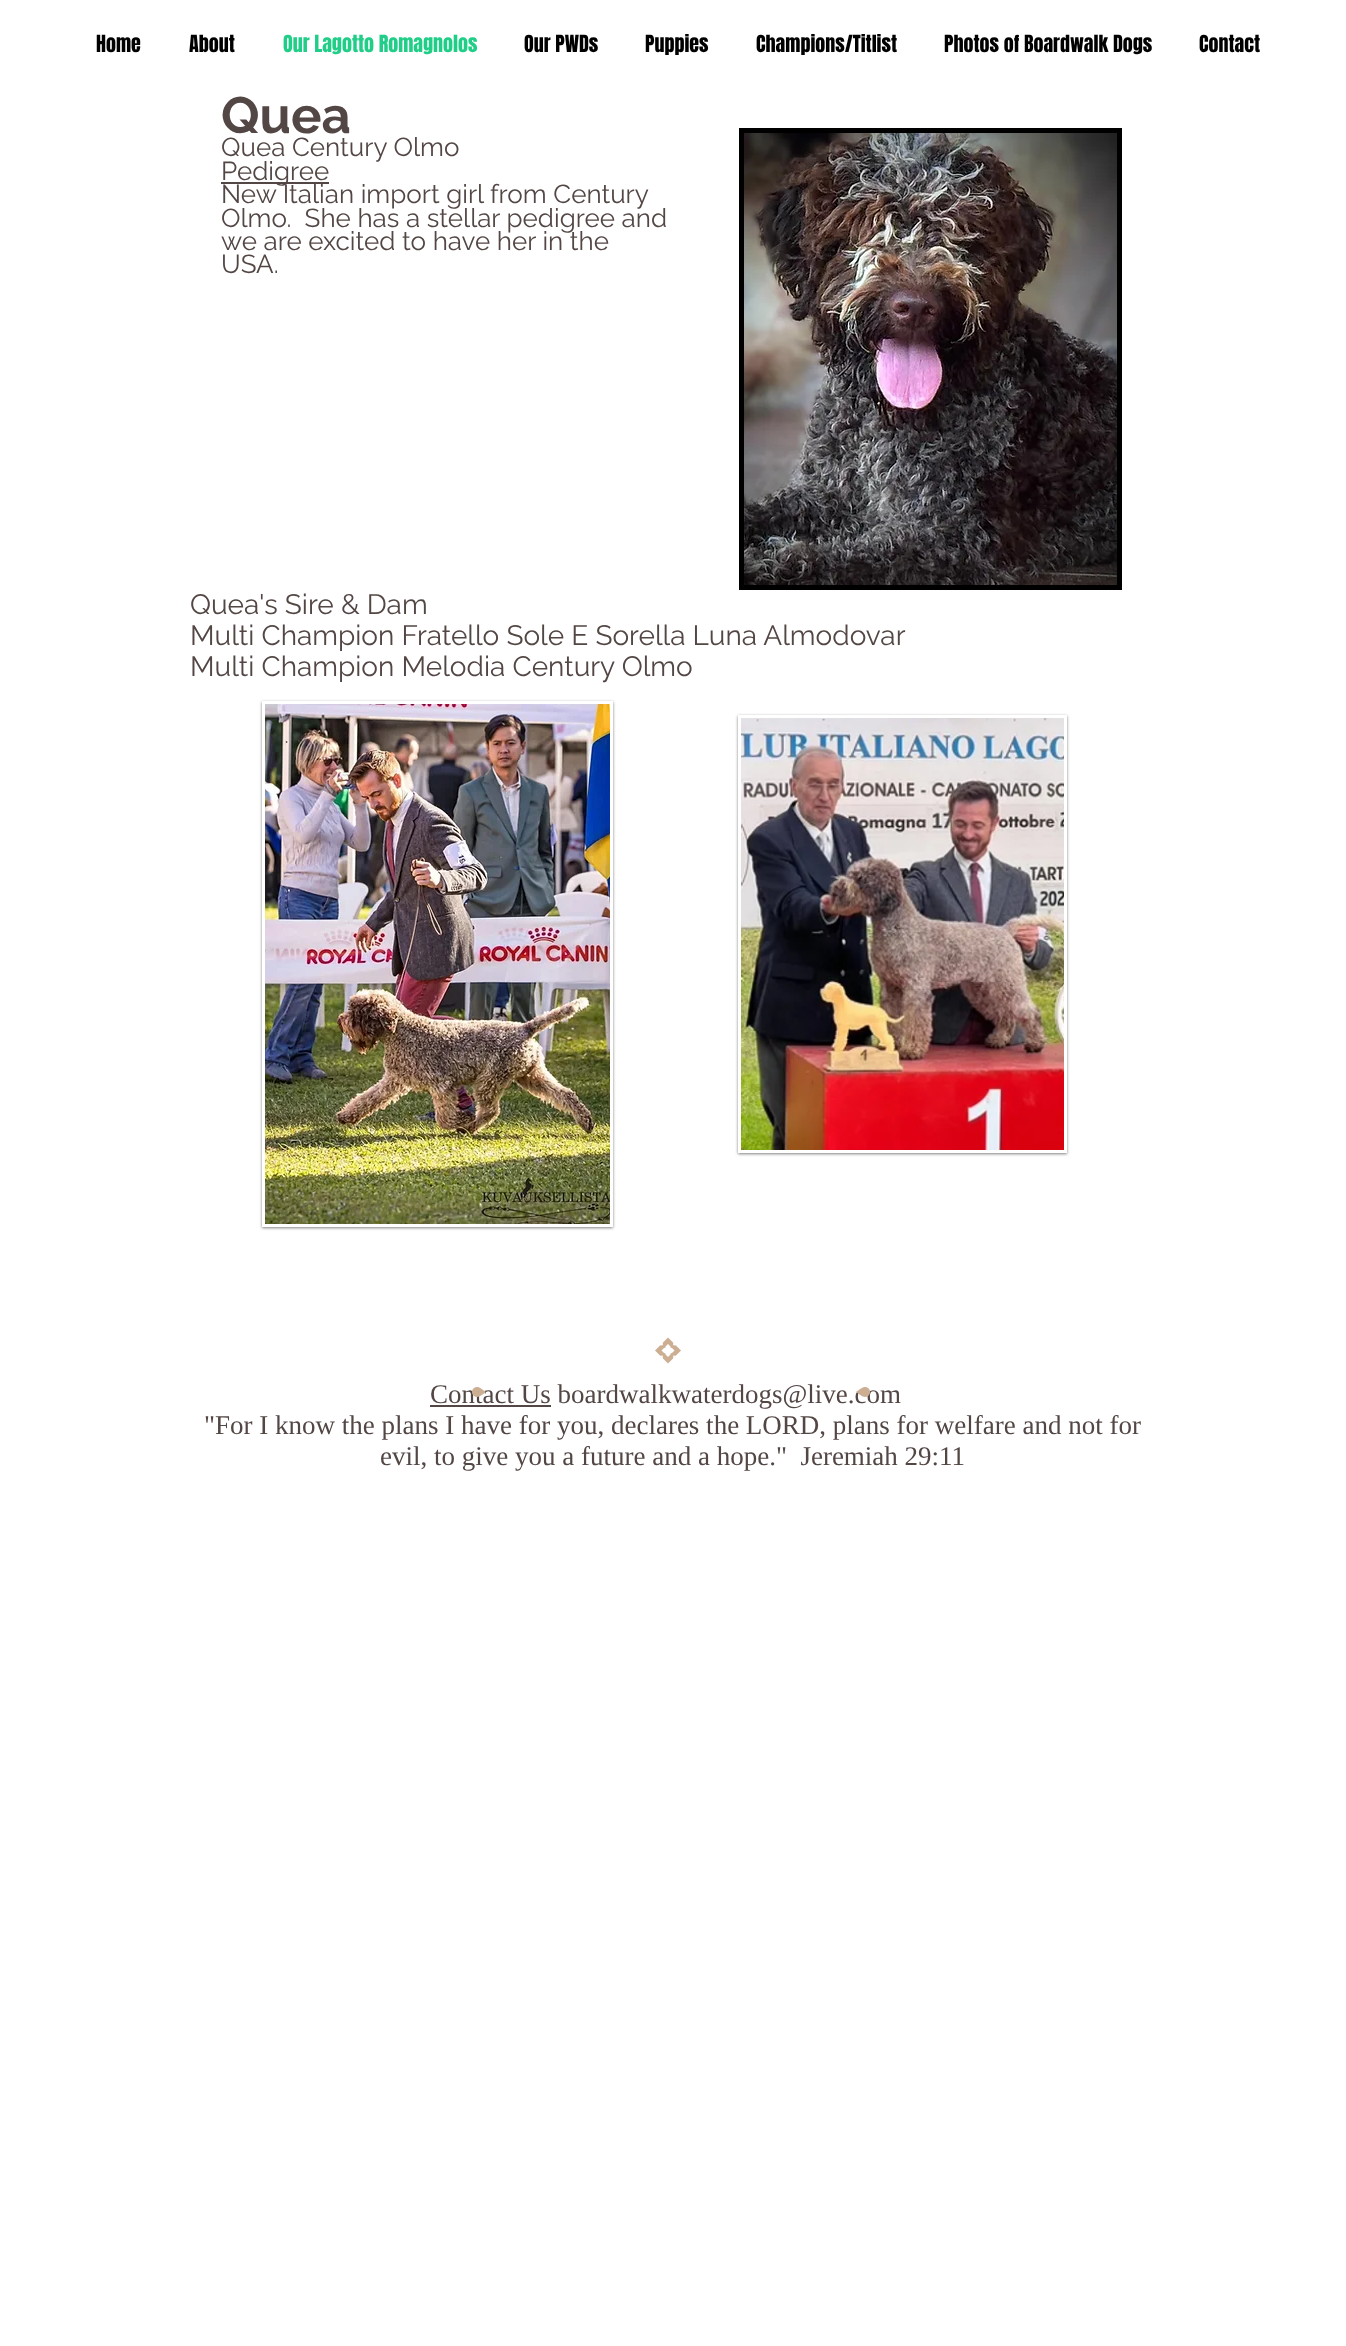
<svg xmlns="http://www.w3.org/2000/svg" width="1346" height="2346">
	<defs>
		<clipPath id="clip1"><path d="M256 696H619V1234H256ZM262 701H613V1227H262Z" clip-rule="evenodd" /></clipPath>
		<clipPath id="clip2"><path d="M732 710H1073V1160H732ZM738 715H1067V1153H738Z" clip-rule="evenodd" /></clipPath>
	</defs>
	<rect width="100%" height="100%" fill="#FFFFFF" />
	<g font-family="Anton" font-size="20" fill="#000000">
		<text x="96" y="52">Home</text>
		<text x="189" y="52">About</text>
	</g>
	<text x="283" y="52" font-family="Anton" font-size="20" fill="#20CE88">Our Lagotto Romagnolos</text>
	<g font-family="Anton" font-size="20" fill="#000000">
		<text x="524" y="52">Our PWDs</text>
		<text x="645" y="52">Puppies</text>
		<text x="756" y="52">Champions/Titlist</text>
		<text x="944" y="52">Photos of Boardwalk Dogs</text>
		<text x="1199" y="52">Contact</text>
	</g>
	<text x="221" y="133" font-family="Raleway" font-size="51" font-weight="700" fill="#534745">Quea</text>
	<text x="221" y="156" font-family="Raleway" font-size="26" fill="#534745">Quea Century Olmo</text>
	<rect x="221" y="182" width="108" height="2" fill="#534745" />
	<g font-family="Raleway" font-size="26" fill="#534745">
		<text x="221" y="180">Pedigree</text>
		<text x="221" y="203">New Italian import girl from Century</text>
		<text x="221" y="227" xml:space="preserve">Olmo.  She has a stellar pedigree and</text>
		<text x="221" y="250">we are excited to have her in the</text>
		<text x="221" y="273">USA.</text>
	</g>
	<rect x="739" y="128" width="383" height="462" fill="#000000" />
	<image x="744" y="133" width="373" height="452" href="assets/img1.png" />
	<g font-family="Raleway" font-size="28" fill="#534745">
		<text x="190" y="614">Quea's Sire &amp; Dam</text>
		<text x="190" y="645">Multi Champion Fratello Sole E Sorella Luna Almodovar</text>
		<text x="190" y="676">Multi Champion Melodia Century Olmo</text>
	</g>
	<g clip-path="url(#clip1)">
		<rect x="262" y="702" width="351" height="526" fill="#000000" fill-opacity="0.5" filter="blur(1.5px)" />
	</g>
	<image x="265" y="704" width="345" height="520" href="assets/img2.png" />
	<g clip-path="url(#clip2)">
		<rect x="738" y="716" width="329" height="438" fill="#000000" fill-opacity="0.5" filter="blur(1.5px)" />
	</g>
	<image x="741" y="718" width="323" height="432" href="assets/img3.png" />
	<image x="655" y="1337" width="26" height="27" href="assets/img4.png" />
	<rect x="430" y="1405" width="121" height="2" fill="#534745" />
	<g font-family="Liberation Serif" font-size="27" fill="#534745">
		<text x="430" y="1403">Contact Us boardwalkwaterdogs@live.com</text>
		<text x="204" y="1434">"For I know the plans I have for you, declares the LORD, plans for welfare and not for</text>
		<text x="380" y="1465" xml:space="preserve">evil, to give you a future and a hope."  Jeremiah 29:11</text>
	</g>
	<image x="472" y="1387" width="14" height="10" href="assets/img5.png" />
	<image x="856" y="1387" width="14" height="10" href="assets/img6.png" />
</svg>
